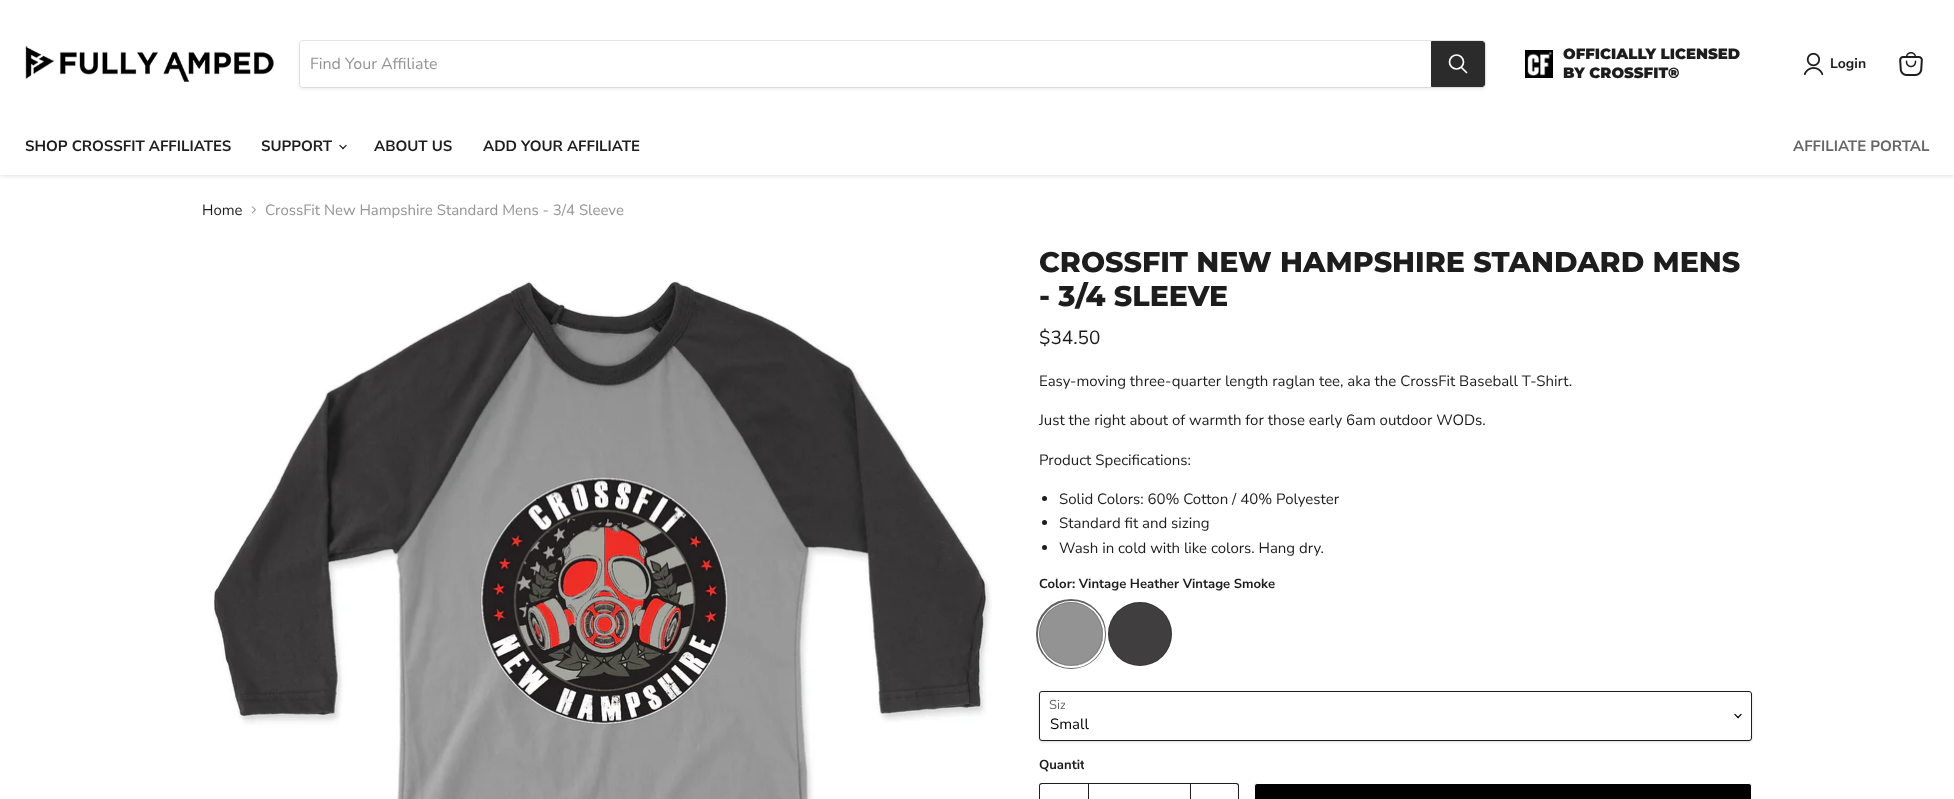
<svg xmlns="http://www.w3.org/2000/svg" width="1954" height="799">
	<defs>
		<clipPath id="clip1"><rect x="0" y="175" width="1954" height="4" /></clipPath>
	</defs>
	<rect width="100%" height="100%" fill="#FFFFFF" />
	<g clip-path="url(#clip1)">
		<rect x="0" y="1" width="1954" height="175" fill="#808080" fill-opacity="0.25" filter="blur(2px)" />
	</g>
	<image x="25" y="46" width="249" height="36" href="assets/img1.png" />
	<rect x="299" y="42" width="1187" height="48" rx="4" fill="#808080" fill-opacity="0.11" filter="blur(1.5px)" />
	<rect x="299.5" y="40.5" width="1186" height="47" rx="3.5" fill="none" stroke="#808080" stroke-opacity="0.2" />
	<path d="M303 41H1431V87H303C301.5 87 300 85.5 300 84V44C300 42.5 301.5 41 303 41Z" fill="#FFFFFF" />
	<text x="310" y="69" font-family="Nunito Sans" font-size="16" fill="#949494">Find Your Affiliate</text>
	<path d="M1431.5 41.5H1482C1483.5 41.5 1484.5 42.5 1484.5 44V84C1484.5 85.5 1483.5 86.5 1482 86.5H1431.5Z" fill="#2B2B2B" stroke="#2B2B2B" />
	<path d="M1466.5 72.5L1461.5 67.5" fill="none" stroke="#FFFFFF" stroke-width="1.7" stroke-linecap="round" />
	<circle cx="1456.5" cy="62" r="7" fill="none" stroke="#FFFFFF" stroke-width="1.7" />
	<image x="1525" y="50" width="28" height="28" href="assets/img2.png" />
	<g font-family="Montserrat" font-size="14.9" font-weight="900" fill="#1D1D1D">
		<text x="1563" y="59">OFFICIALLY LICENSED</text>
		<text x="1563" y="78">BY CROSSFIT®</text>
	</g>
	<image x="1803" y="52" width="20" height="24" href="assets/img3.png" />
	<text x="1830" y="68" font-family="Nunito Sans" font-size="14" font-weight="700" fill="#1D1D1D">Login</text>
	<image x="1899" y="52" width="24" height="24" href="assets/img4.png" />
	<g font-family="Nunito Sans" font-size="15" font-weight="700" fill="#1D1D1D">
		<text x="25" y="151">SHOP CROSSFIT AFFILIATES</text>
		<text x="261" y="151">SUPPORT</text>
	</g>
	<image x="339" y="144" width="8" height="6" href="assets/img5.png" />
	<g font-family="Nunito Sans" font-size="15" font-weight="700" fill="#1D1D1D">
		<text x="374" y="151">ABOUT US</text>
		<text x="483" y="151">ADD YOUR AFFILIATE</text>
	</g>
	<text x="1793" y="151" font-family="Nunito Sans" font-size="15" font-weight="700" fill="#666666">AFFILIATE PORTAL</text>
	<text x="202" y="215" font-family="Nunito Sans" font-size="15" fill="#1D1D1D">Home</text>
	<image x="251" y="206" width="5" height="8" href="assets/img6.png" />
	<text x="265" y="215" font-family="Nunito Sans" font-size="15" fill="#949494">CrossFit New Hampshire Standard Mens - 3/4 Sleeve</text>
	<image x="213" y="281" width="779" height="518" href="assets/img7.png" />
	<g font-family="Montserrat" font-size="28.5" font-weight="800" fill="#1D1D1D">
		<text x="1039" y="272">CROSSFIT NEW HAMPSHIRE STANDARD MENS</text>
		<text x="1039" y="306">- 3/4 SLEEVE</text>
	</g>
	<text x="1039" y="344" font-family="Nunito Sans" font-size="19" fill="#1D1D1D">$34.50</text>
	<g font-family="Nunito Sans" font-size="15" fill="#1D1D1D">
		<text x="1039" y="386">Easy-moving three-quarter length raglan tee, aka the CrossFit Baseball T-Shirt.</text>
		<text x="1039" y="425">Just the right about of warmth for those early 6am outdoor WODs.</text>
		<text x="1039" y="465">Product Specifications:</text>
	</g>
	<circle cx="1044.5" cy="498.5" r="2.5" fill="#1D1D1D" />
	<text x="1059" y="504" font-family="Nunito Sans" font-size="15" fill="#1D1D1D">Solid Colors: 60% Cotton / 40% Polyester</text>
	<circle cx="1044.5" cy="522.5" r="2.5" fill="#1D1D1D" />
	<text x="1059" y="528" font-family="Nunito Sans" font-size="15" fill="#1D1D1D">Standard fit and sizing</text>
	<circle cx="1044.5" cy="547.5" r="2.5" fill="#1D1D1D" />
	<text x="1059" y="553" font-family="Nunito Sans" font-size="15" fill="#1D1D1D">Wash in cold with like colors. Hang dry.</text>
	<text x="1039" y="588" font-family="Nunito Sans" font-size="13.1" font-weight="700" fill="#1D1D1D">Color: Vintage Heather Vintage Smoke</text>
	<circle cx="1071" cy="634" r="33.5" fill="none" stroke="#626262" stroke-width="3" />
	<circle cx="1071.5" cy="634.5" r="32.5" fill="none" stroke="#FFFFFF" stroke-width="2" />
	<circle cx="1071" cy="634" r="32" fill="#939393" />
	<circle cx="1071" cy="634" r="31.5" fill="none" stroke="#000000" stroke-opacity="0.15" />
	<circle cx="1140" cy="634" r="32" fill="#403E3F" />
	<circle cx="1140" cy="634" r="31.5" fill="none" stroke="#000000" stroke-opacity="0.15" />
	<rect x="1039" y="692" width="713" height="50" rx="3" fill="#000000" fill-opacity="0.15" filter="blur(1px)" />
	<rect x="1039.5" y="691.5" width="712" height="49" rx="2.5" fill="#FFFFFF" stroke="#1D1D1D" />
	<text x="1049" y="709" font-family="Nunito Sans" font-size="13" fill="#666666">Siz</text>
	<rect x="1065" y="699" width="1" height="13" fill="#FFFFFF" />
	<image x="1734" y="713" width="8" height="6" href="assets/img8.png" />
	<text x="1050" y="729" font-family="Nunito Sans" font-size="15" fill="#000000">Small</text>
	<text x="1039" y="769" font-family="Nunito Sans" font-size="13.1" font-weight="700" fill="#1D1D1D">Quantit</text>
	<rect x="1084" y="758" width="2" height="15" fill="#FFFFFF" />
	<path d="M1042 783H1088V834H1042C1040 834 1039 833 1039 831V786C1039 784 1040 783 1042 783ZM1042 784H1088V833H1050C1046 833 1040 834 1040 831V785Z" fill="#1D1D1D" fill-rule="evenodd" />
	<rect x="1088.5" y="783.5" width="102" height="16" fill="none" stroke="#1D1D1D" />
	<path d="M1191 783H1236C1238 783 1239 784 1239 786V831C1239 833 1238 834 1236 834H1191ZM1191 784H1236C1237 784 1238 785 1238 786V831C1238 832 1237 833 1236 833H1191Z" fill="#1D1D1D" fill-rule="evenodd" />
	<rect x="1254.5" y="783.5" width="497" height="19" rx="2.5" fill="#000000" stroke="#FFFFFF" />
</svg>
